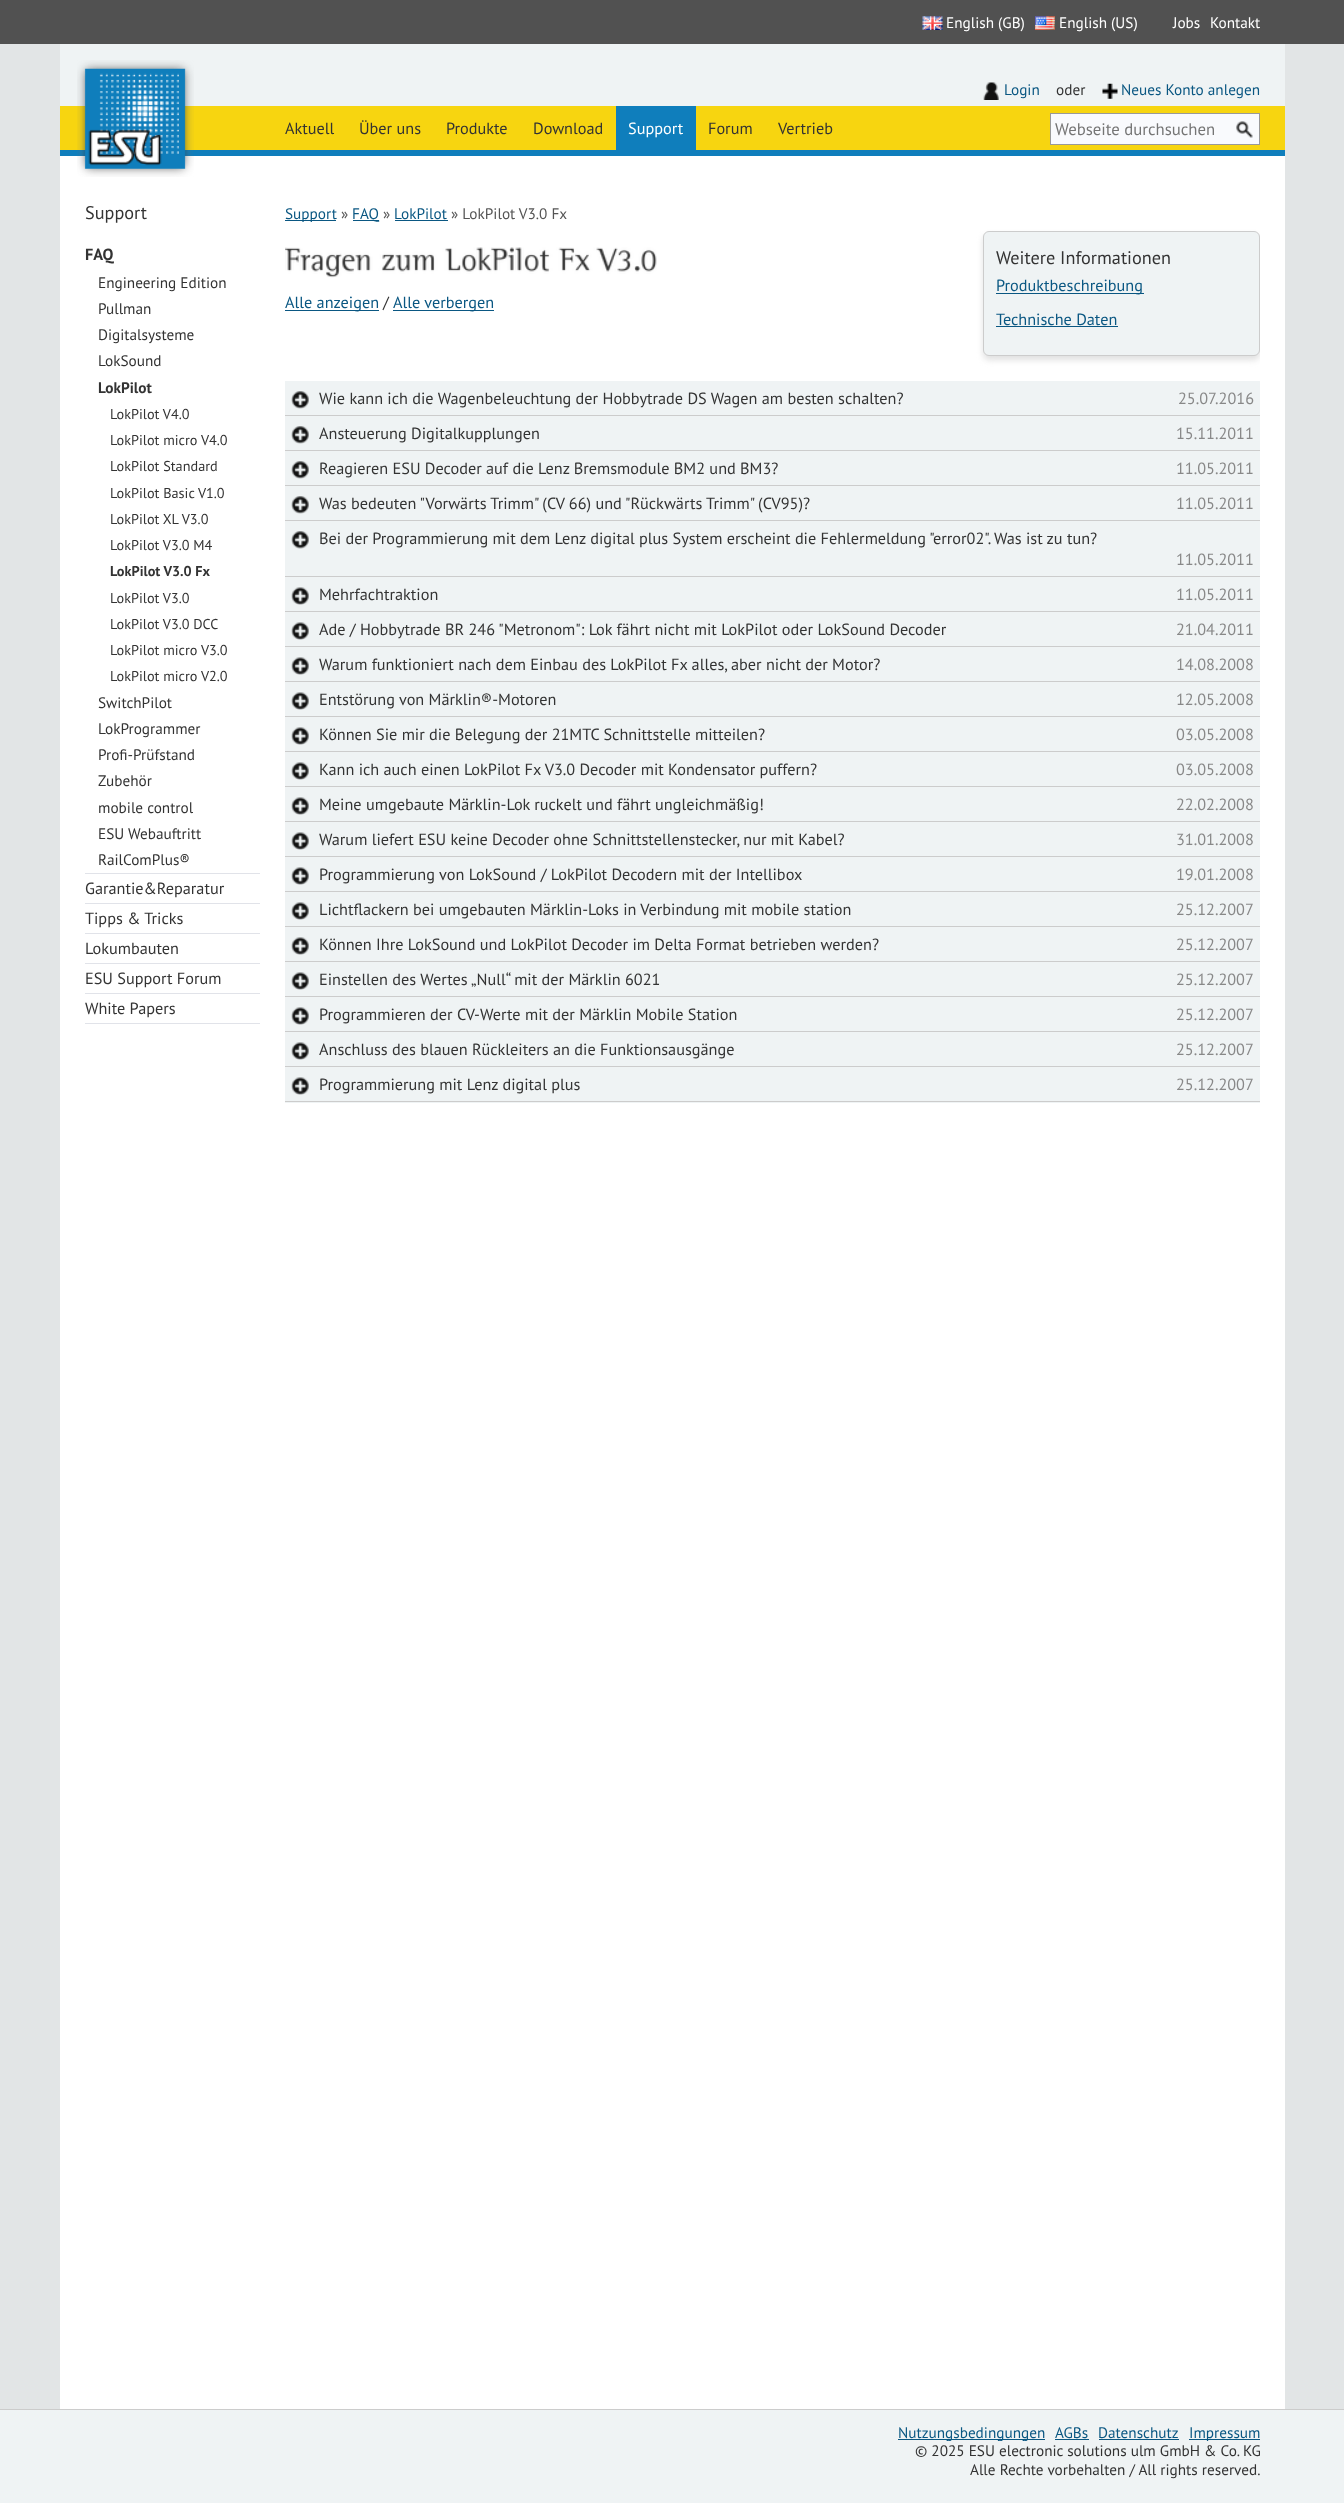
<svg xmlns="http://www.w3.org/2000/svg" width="1344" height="2503">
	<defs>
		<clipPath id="clip1"><rect x="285" y="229" width="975" height="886" /></clipPath>
		<clipPath id="clip2"><rect x="888" y="2423" width="372" height="18" /></clipPath>
	</defs>
	<rect width="100%" height="100%" fill="#E2E5E6" />
	<rect x="60" y="156" width="1225" height="2253" fill="#FFFFFF" />
	<rect x="0" y="0" width="1344" height="44" fill="#515151" />
	<image x="922" y="16" width="21" height="14" href="assets/img1.png" />
	<text x="946" y="28" font-family="PT Sans" font-size="15.25" fill="#FFFFFF">English (GB)</text>
	<image x="1035" y="16" width="20" height="14" href="assets/img2.png" />
	<g font-family="PT Sans" font-size="15.25" fill="#FFFFFF">
		<text x="1059" y="28">English (US)</text>
		<text x="1173" y="28">Jobs</text>
		<text x="1210" y="28">Kontakt</text>
	</g>
	<rect x="60" y="44" width="1225" height="62" fill="#EFF3F4" />
	<rect x="60" y="106" width="1225" height="44" fill="#F7D510" />
	<rect x="60" y="150" width="1225" height="6" fill="#0F7EBC" />
	<image x="77" y="60" width="117" height="117" href="assets/img3.png" />
	<image x="983" y="82" width="16" height="18" href="assets/img4.png" />
	<text x="1004" y="95" font-family="PT Sans" font-size="15.25" fill="#0A5782">Login</text>
	<text x="1056" y="95" font-family="PT Sans" font-size="15.25" fill="#333333">oder</text>
	<image x="1102" y="83" width="16" height="16" href="assets/img5.png" />
	<text x="1121" y="95" font-family="PT Sans" font-size="15.25" fill="#0A5782">Neues Konto anlegen</text>
	<g font-family="PT Sans" font-size="16.25" fill="#333333">
		<text x="285" y="134">Aktuell</text>
		<text x="359" y="134">Über uns</text>
		<text x="446" y="134">Produkte</text>
		<text x="533" y="134">Download</text>
	</g>
	<rect x="616" y="106" width="80" height="44" fill="#0F7EBC" />
	<text x="628" y="134" font-family="PT Sans" font-size="16.25" fill="#FFFFFF">Support</text>
	<g font-family="PT Sans" font-size="16.25" fill="#333333">
		<text x="708" y="134">Forum</text>
		<text x="778" y="134">Vertrieb</text>
	</g>
	<rect x="1050.5" y="113.5" width="209" height="31" fill="#F9FAFD" stroke="#999999" />
	<text x="1055" y="135" font-family="PT Sans" font-size="16.75" fill="#757575">Webseite durchsuchen</text>
	<image x="1236" y="121" width="17" height="17" href="assets/img6.png" />
	<text x="85" y="219" font-family="PT Sans" font-size="18.25" fill="#333333">Support</text>
	<rect x="85" y="873" width="175" height="1" fill="#E1E3E9" />
	<text x="85" y="260" font-family="PT Sans" font-size="16.25" font-weight="700" fill="#333333">FAQ</text>
	<g font-family="PT Sans" font-size="15.25" fill="#333333">
		<text x="98" y="288">Engineering Edition</text>
		<text x="98" y="314">Pullman</text>
		<text x="98" y="340">Digitalsysteme</text>
		<text x="98" y="366">LokSound</text>
	</g>
	<text x="98" y="393" font-family="PT Sans" font-size="15.25" font-weight="700" fill="#333333">LokPilot</text>
	<g font-family="PT Sans" font-size="14.25" fill="#333333">
		<text x="110" y="419">LokPilot V4.0</text>
		<text x="110" y="445">LokPilot micro V4.0</text>
		<text x="110" y="471">LokPilot Standard</text>
		<text x="110" y="498">LokPilot Basic V1.0</text>
		<text x="110" y="524">LokPilot XL V3.0</text>
		<text x="110" y="550">LokPilot V3.0 M4</text>
	</g>
	<text x="110" y="576" font-family="PT Sans" font-size="14.25" font-weight="700" fill="#333333">LokPilot V3.0 Fx</text>
	<g font-family="PT Sans" font-size="14.25" fill="#333333">
		<text x="110" y="603">LokPilot V3.0</text>
		<text x="110" y="629">LokPilot V3.0 DCC</text>
		<text x="110" y="655">LokPilot micro V3.0</text>
		<text x="110" y="681">LokPilot micro V2.0</text>
	</g>
	<g font-family="PT Sans" font-size="15.25" fill="#333333">
		<text x="98" y="708">SwitchPilot</text>
		<text x="98" y="734">LokProgrammer</text>
		<text x="98" y="760">Profi-Prüfstand</text>
		<text x="98" y="786">Zubehör</text>
		<text x="98" y="813">mobile control</text>
		<text x="98" y="839">ESU Webauftritt</text>
		<text x="98" y="865">RailComPlus®</text>
	</g>
	<rect x="85" y="903" width="175" height="1" fill="#E1E3E9" />
	<text x="85" y="894" font-family="PT Sans" font-size="16.25" fill="#333333">Garantie&amp;Reparatur</text>
	<rect x="85" y="933" width="175" height="1" fill="#E1E3E9" />
	<text x="85" y="924" font-family="PT Sans" font-size="16.25" fill="#333333">Tipps &amp; Tricks</text>
	<rect x="85" y="963" width="175" height="1" fill="#E1E3E9" />
	<text x="85" y="954" font-family="PT Sans" font-size="16.25" fill="#333333">Lokumbauten</text>
	<rect x="85" y="993" width="175" height="1" fill="#E1E3E9" />
	<text x="85" y="984" font-family="PT Sans" font-size="16.25" fill="#333333">ESU Support Forum</text>
	<rect x="85" y="1023" width="175" height="1" fill="#E1E3E9" />
	<text x="85" y="1014" font-family="PT Sans" font-size="16.25" fill="#333333">White Papers</text>
	<rect x="285" y="220" width="51" height="1" fill="#0A5782" />
	<text x="285" y="219" font-family="PT Sans" font-size="15.25" fill="#0A5782">Support</text>
	<text x="341" y="219" font-family="PT Sans" font-size="15.25" fill="#555555">»</text>
	<rect x="353" y="220" width="26" height="1" fill="#0A5782" />
	<text x="352" y="219" font-family="PT Sans" font-size="15.25" fill="#0A5782">FAQ</text>
	<text x="383" y="219" font-family="PT Sans" font-size="15.25" fill="#555555">»</text>
	<text x="394" y="219" font-family="PT Sans" font-size="15.25" fill="#0A5782">LokPilot</text>
	<rect x="395" y="220" width="53" height="1" fill="#0A5782" />
	<text x="451" y="219" font-family="PT Sans" font-size="15.25" fill="#555555">» LokPilot V3.0 Fx</text>
	<g clip-path="url(#clip1)">
		<rect x="983" y="235" width="277" height="125" rx="6" fill="#E0E0E0" filter="blur(3px)" />
	</g>
	<rect x="983.5" y="231.5" width="276" height="124" rx="5.5" fill="#EFF3F4" stroke="#CCCCCC" />
	<text x="996" y="264" font-family="PT Sans" font-size="18.25" fill="#333333">Weitere Informationen</text>
	<rect x="996" y="293" width="148" height="1" fill="#0A5782" />
	<g font-family="PT Sans" font-size="16.25" fill="#0A5782">
		<text x="996" y="291">Produktbeschreibung</text>
		<text x="996" y="325">Technische Daten</text>
	</g>
	<rect x="996" y="326" width="122" height="1" fill="#0A5782" />
	<image x="285" y="247" width="372" height="31" href="assets/img7.png" />
	<rect x="285" y="310" width="94" height="1" fill="#0A5782" />
	<text x="285" y="308" font-family="PT Sans" font-size="16.25" fill="#0A5782">Alle anzeigen</text>
	<text x="383" y="308" font-family="PT Sans" font-size="16.25" fill="#333333">/</text>
	<rect x="393" y="310" width="101" height="1" fill="#0A5782" />
	<text x="393" y="308" font-family="PT Sans" font-size="16.25" fill="#0A5782">Alle verbergen</text>
	<rect x="285" y="381" width="975" height="34" fill="#EFF3F4" />
	<rect x="285" y="415" width="975" height="1" fill="#CCCCCC" />
	<image x="291" y="391" width="18" height="18" href="assets/img8.png" />
	<text x="319" y="404" font-family="PT Sans" font-size="16.25" fill="#333333">Wie kann ich die Wagenbeleuchtung der Hobbytrade DS Wagen am besten schalten?</text>
	<text x="1178" y="404" font-family="PT Sans" font-size="16.25" fill="#888888">25.07.2016</text>
	<rect x="285" y="416" width="975" height="34" fill="#EFF3F4" />
	<rect x="285" y="450" width="975" height="1" fill="#CCCCCC" />
	<image x="291" y="426" width="18" height="18" href="assets/img8.png" />
	<text x="319" y="439" font-family="PT Sans" font-size="16.25" fill="#333333">Ansteuerung Digitalkupplungen</text>
	<text x="1176" y="439" font-family="PT Sans" font-size="16.25" fill="#888888">15.11.2011</text>
	<rect x="285" y="451" width="975" height="34" fill="#EFF3F4" />
	<rect x="285" y="485" width="975" height="1" fill="#CCCCCC" />
	<image x="291" y="461" width="18" height="18" href="assets/img8.png" />
	<text x="319" y="474" font-family="PT Sans" font-size="16.25" fill="#333333">Reagieren ESU Decoder auf die Lenz Bremsmodule BM2 und BM3?</text>
	<text x="1176" y="474" font-family="PT Sans" font-size="16.25" fill="#888888">11.05.2011</text>
	<rect x="285" y="486" width="975" height="34" fill="#EFF3F4" />
	<rect x="285" y="520" width="975" height="1" fill="#CCCCCC" />
	<image x="291" y="496" width="18" height="18" href="assets/img8.png" />
	<text x="319" y="509" font-family="PT Sans" font-size="16.25" fill="#333333">Was bedeuten "Vorwärts Trimm" (CV 66) und "Rückwärts Trimm" (CV95)?</text>
	<text x="1176" y="509" font-family="PT Sans" font-size="16.25" fill="#888888">11.05.2011</text>
	<rect x="285" y="521" width="975" height="582" fill="#EFF3F4" />
	<rect x="285" y="576" width="975" height="1" fill="#CCCCCC" />
	<image x="291" y="531" width="18" height="18" href="assets/img9.png" />
	<text x="319" y="544" font-family="PT Sans" font-size="16.25" fill="#333333">Bei der Programmierung mit dem Lenz digital plus System erscheint die Fehlermeldung "error02". Was ist zu tun?</text>
	<text x="1176" y="565" font-family="PT Sans" font-size="16.25" fill="#888888">11.05.2011</text>
	<rect x="285" y="611" width="975" height="1" fill="#CCCCCC" />
	<image x="291" y="587" width="18" height="18" href="assets/img10.png" />
	<text x="319" y="600" font-family="PT Sans" font-size="16.25" fill="#333333">Mehrfachtraktion</text>
	<text x="1176" y="600" font-family="PT Sans" font-size="16.25" fill="#888888">11.05.2011</text>
	<rect x="285" y="646" width="975" height="1" fill="#CCCCCC" />
	<image x="291" y="622" width="18" height="18" href="assets/img11.png" />
	<text x="319" y="635" font-family="PT Sans" font-size="16.25" fill="#333333">Ade / Hobbytrade BR 246 "Metronom": Lok fährt nicht mit LokPilot oder LokSound Decoder</text>
	<text x="1176" y="635" font-family="PT Sans" font-size="16.25" fill="#888888">21.04.2011</text>
	<rect x="285" y="681" width="975" height="1" fill="#CCCCCC" />
	<image x="291" y="657" width="18" height="18" href="assets/img11.png" />
	<text x="319" y="670" font-family="PT Sans" font-size="16.25" fill="#333333">Warum funktioniert nach dem Einbau des LokPilot Fx alles, aber nicht der Motor?</text>
	<text x="1176" y="670" font-family="PT Sans" font-size="16.25" fill="#888888">14.08.2008</text>
	<rect x="285" y="716" width="975" height="1" fill="#CCCCCC" />
	<image x="291" y="692" width="18" height="18" href="assets/img11.png" />
	<text x="319" y="705" font-family="PT Sans" font-size="16.25" fill="#333333">Entstörung von Märklin®-Motoren</text>
	<text x="1176" y="705" font-family="PT Sans" font-size="16.25" fill="#888888">12.05.2008</text>
	<rect x="285" y="751" width="975" height="1" fill="#CCCCCC" />
	<image x="291" y="727" width="18" height="18" href="assets/img11.png" />
	<text x="319" y="740" font-family="PT Sans" font-size="16.25" fill="#333333">Können Sie mir die Belegung der 21MTC Schnittstelle mitteilen?</text>
	<text x="1176" y="740" font-family="PT Sans" font-size="16.25" fill="#888888">03.05.2008</text>
	<rect x="285" y="786" width="975" height="1" fill="#CCCCCC" />
	<image x="291" y="762" width="18" height="18" href="assets/img11.png" />
	<text x="319" y="775" font-family="PT Sans" font-size="16.25" fill="#333333">Kann ich auch einen LokPilot Fx V3.0 Decoder mit Kondensator puffern?</text>
	<text x="1176" y="775" font-family="PT Sans" font-size="16.25" fill="#888888">03.05.2008</text>
	<rect x="285" y="821" width="975" height="1" fill="#CCCCCC" />
	<image x="291" y="797" width="18" height="18" href="assets/img11.png" />
	<text x="319" y="810" font-family="PT Sans" font-size="16.25" fill="#333333">Meine umgebaute Märklin-Lok ruckelt und fährt ungleichmäßig!</text>
	<text x="1176" y="810" font-family="PT Sans" font-size="16.25" fill="#888888">22.02.2008</text>
	<rect x="285" y="856" width="975" height="1" fill="#CCCCCC" />
	<image x="291" y="832" width="18" height="18" href="assets/img11.png" />
	<text x="319" y="845" font-family="PT Sans" font-size="16.25" fill="#333333">Warum liefert ESU keine Decoder ohne Schnittstellenstecker, nur mit Kabel?</text>
	<text x="1176" y="845" font-family="PT Sans" font-size="16.25" fill="#888888">31.01.2008</text>
	<rect x="285" y="891" width="975" height="1" fill="#CCCCCC" />
	<image x="291" y="867" width="18" height="18" href="assets/img11.png" />
	<text x="319" y="880" font-family="PT Sans" font-size="16.25" fill="#333333">Programmierung von LokSound / LokPilot Decodern mit der Intellibox</text>
	<text x="1176" y="880" font-family="PT Sans" font-size="16.25" fill="#888888">19.01.2008</text>
	<rect x="285" y="926" width="975" height="1" fill="#CCCCCC" />
	<image x="291" y="902" width="18" height="18" href="assets/img11.png" />
	<text x="319" y="915" font-family="PT Sans" font-size="16.25" fill="#333333">Lichtflackern bei umgebauten Märklin-Loks in Verbindung mit mobile station</text>
	<text x="1176" y="915" font-family="PT Sans" font-size="16.25" fill="#888888">25.12.2007</text>
	<rect x="285" y="961" width="975" height="1" fill="#CCCCCC" />
	<image x="291" y="937" width="18" height="18" href="assets/img11.png" />
	<text x="319" y="950" font-family="PT Sans" font-size="16.25" fill="#333333">Können Ihre LokSound und LokPilot Decoder im Delta Format betrieben werden?</text>
	<text x="1176" y="950" font-family="PT Sans" font-size="16.25" fill="#888888">25.12.2007</text>
	<rect x="285" y="996" width="975" height="1" fill="#CCCCCC" />
	<image x="291" y="972" width="18" height="18" href="assets/img11.png" />
	<text x="319" y="985" font-family="PT Sans" font-size="16.25" fill="#333333">Einstellen des Wertes „Null“ mit der Märklin 6021</text>
	<text x="1176" y="985" font-family="PT Sans" font-size="16.25" fill="#888888">25.12.2007</text>
	<rect x="285" y="1031" width="975" height="1" fill="#CCCCCC" />
	<image x="291" y="1007" width="18" height="18" href="assets/img11.png" />
	<text x="319" y="1020" font-family="PT Sans" font-size="16.25" fill="#333333">Programmieren der CV-Werte mit der Märklin Mobile Station</text>
	<text x="1176" y="1020" font-family="PT Sans" font-size="16.25" fill="#888888">25.12.2007</text>
	<rect x="285" y="1066" width="975" height="1" fill="#CCCCCC" />
	<image x="291" y="1042" width="18" height="18" href="assets/img11.png" />
	<text x="319" y="1055" font-family="PT Sans" font-size="16.25" fill="#333333">Anschluss des blauen Rückleiters an die Funktionsausgänge</text>
	<text x="1176" y="1055" font-family="PT Sans" font-size="16.25" fill="#888888">25.12.2007</text>
	<rect x="285" y="1101" width="975" height="1" fill="#CCCCCC" />
	<image x="291" y="1077" width="18" height="18" href="assets/img11.png" />
	<text x="319" y="1090" font-family="PT Sans" font-size="16.25" fill="#333333">Programmierung mit Lenz digital plus</text>
	<text x="1176" y="1090" font-family="PT Sans" font-size="16.25" fill="#888888">25.12.2007</text>
	<rect x="0" y="2410" width="1344" height="93" fill="#EFF3F4" />
	<rect x="0" y="2409" width="1344" height="1" fill="#CCCCCC" />
	<rect x="898" y="2439" width="147" height="1" fill="#0A5782" />
	<g clip-path="url(#clip2)">
		<text x="898" y="2438" font-family="PT Sans" font-size="15.25" fill="#0A5782">Nutzungsbedingungen</text>
	</g>
	<text x="1055" y="2438" font-family="PT Sans" font-size="15.25" fill="#0A5782">AGBs</text>
	<rect x="1055" y="2439" width="34" height="1" fill="#0A5782" />
	<text x="1098" y="2438" font-family="PT Sans" font-size="15.25" fill="#0A5782">Datenschutz</text>
	<rect x="1099" y="2439" width="80" height="1" fill="#0A5782" />
	<rect x="1189" y="2439" width="71" height="1" fill="#0A5782" />
	<text x="1189" y="2438" font-family="PT Sans" font-size="15.25" fill="#0A5782">Impressum</text>
	<g font-family="PT Sans" font-size="15.25" fill="#333333">
		<text x="915" y="2456">© 2025 ESU electronic solutions ulm GmbH &amp; Co. KG</text>
		<text x="970" y="2475">Alle Rechte vorbehalten / All rights reserved.</text>
	</g>
</svg>
